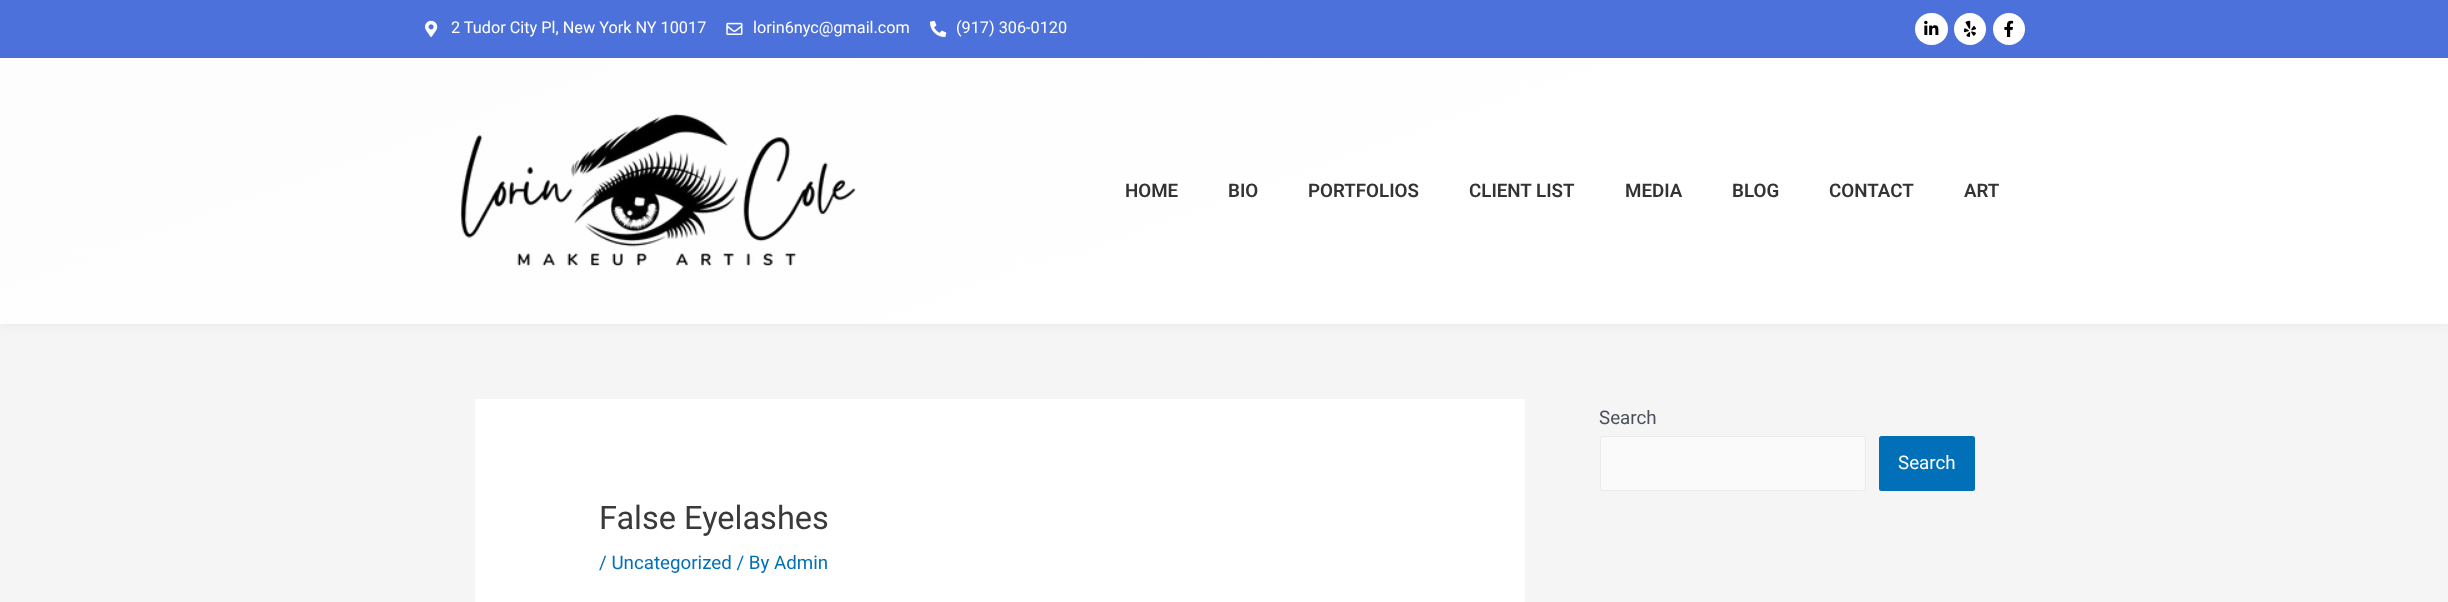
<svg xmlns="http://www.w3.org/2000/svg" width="2448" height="602">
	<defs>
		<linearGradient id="g1" gradientUnits="userSpaceOnUse" x1="1038" y1="-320" x2="1410" y2="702"><stop offset="0" stop-color="#FDFDFD" /><stop offset="0.7" stop-color="#FFFFFF" /></linearGradient>
	</defs>
	<rect width="100%" height="100%" fill="#F5F5F5" />
	<rect x="0" y="0" width="2448" height="58" fill="#4D71DA" />
	<image x="425" y="20" width="13" height="17" href="assets/img1.png" />
	<text x="451" y="33" font-family="Roboto" font-size="16.25" fill="#FFFFFF">2 Tudor City Pl, New York NY 10017</text>
	<image x="726" y="22" width="17" height="13" href="assets/img2.png" />
	<text x="753" y="33" font-family="Roboto" font-size="16.25" fill="#FFFFFF">lorin6nyc@gmail.com</text>
	<image x="930" y="20" width="17" height="17" href="assets/img3.png" />
	<text x="956" y="33" font-family="Roboto" font-size="16.25" fill="#FFFFFF">(917) 306-0120</text>
	<rect x="1915" y="13" width="33" height="32" rx="16" fill="#FFFFFF" />
	<image x="1924" y="20" width="15" height="15" href="assets/img4.png" />
	<circle cx="1970" cy="29" r="16" fill="#FFFFFF" />
	<image x="1963" y="20" width="13" height="17" href="assets/img5.png" />
	<circle cx="2009" cy="29" r="16" fill="#FFFFFF" />
	<image x="2004" y="20" width="10" height="17" href="assets/img6.png" />
	<rect x="0" y="60" width="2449" height="266" fill="#052639" fill-opacity="0.05" filter="blur(5px)" />
	<rect x="0" y="58" width="2448" height="266" fill="url(#g1)" />
	<image x="460" y="113" width="396" height="154" href="assets/img7.png" />
	<g font-family="Roboto" font-size="18.75" font-weight="600" fill="#333333">
		<text x="1125" y="197">HOME</text>
		<text x="1228" y="197">BIO</text>
		<text x="1308" y="197">PORTFOLIOS</text>
		<text x="1469" y="197">CLIENT LIST</text>
		<text x="1625" y="197">MEDIA</text>
		<text x="1732" y="197">BLOG</text>
		<text x="1829" y="197">CONTACT</text>
		<text x="1964" y="197">ART</text>
	</g>
	<text x="1599" y="424" font-family="Roboto" font-size="18.75" fill="#4B4F58">Search</text>
	<rect x="1600.5" y="436.5" width="265" height="54" rx="2" fill="#FAFAFA" stroke="#EAEAEA" />
	<rect x="1879" y="436" width="96" height="55" rx="2.5" fill="#0170B9" />
	<text x="1898" y="469" font-family="Roboto" font-size="18.75" fill="#FFFFFF">Search</text>
	<rect x="475" y="399" width="1050" height="203" fill="#FFFFFF" />
	<text x="599" y="529" font-family="Roboto" font-size="32.5" fill="#3A3A3A">False Eyelashes</text>
	<text x="599" y="569" font-family="Roboto" font-size="18.75" fill="#0170B9">/ Uncategorized / By Admin</text>
</svg>
